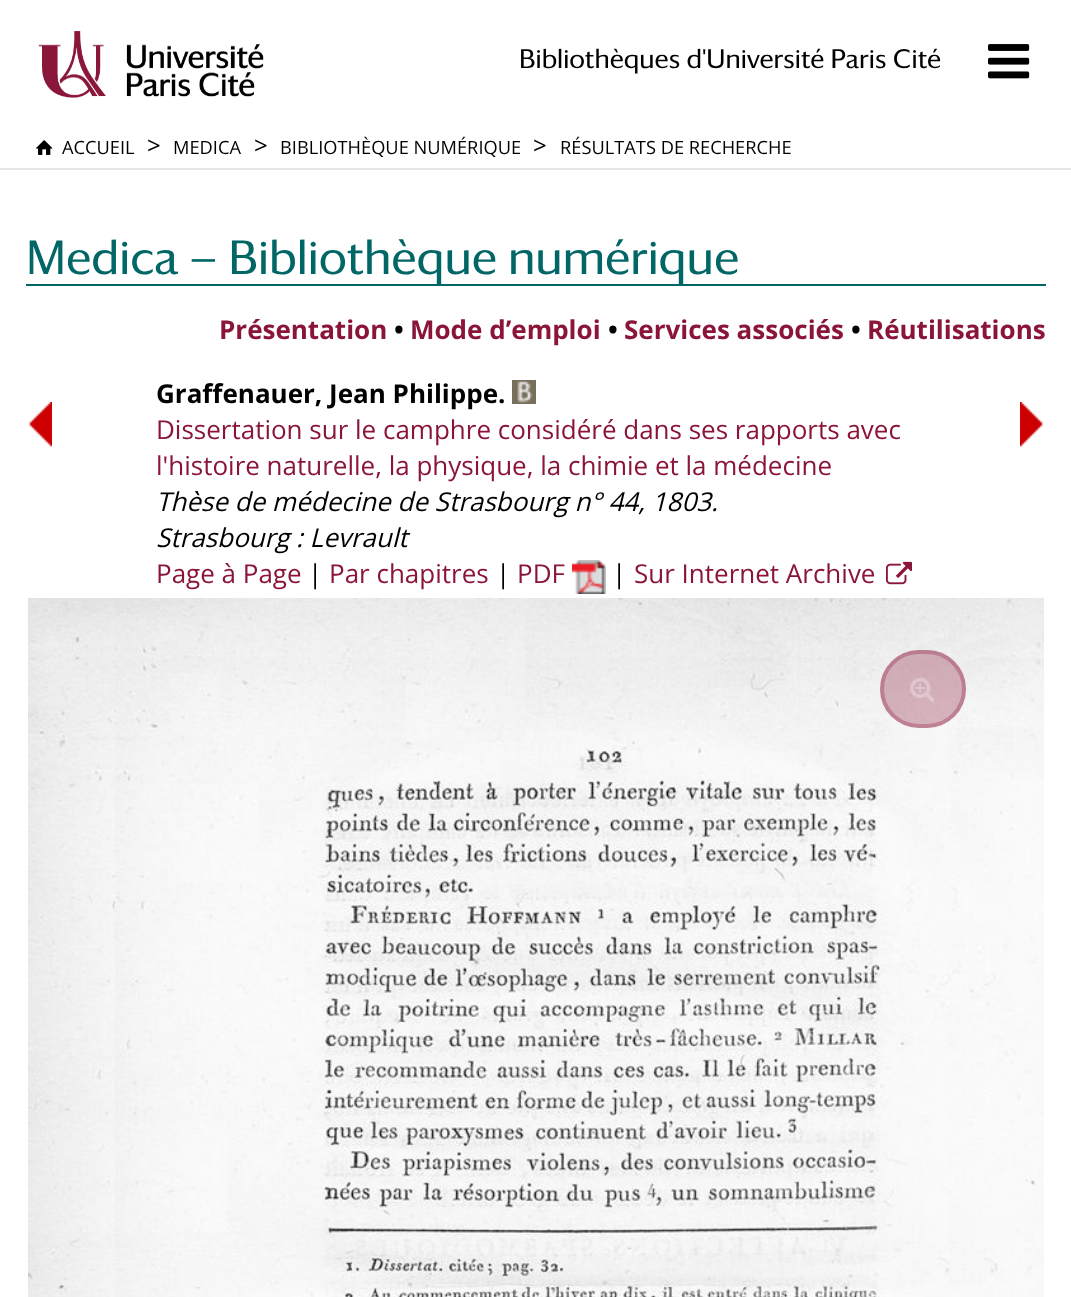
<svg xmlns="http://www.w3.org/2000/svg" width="1071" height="1297">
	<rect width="100%" height="100%" fill="#FFFFFF" />
	<rect x="0" y="168" width="1071" height="2" fill="#E6E6E6" />
	<image x="38" y="31" width="226" height="67" href="assets/img1.png" />
	<text x="519" y="68" font-family="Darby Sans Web" font-size="26" fill="#000000">Bibliothèques d'Université Paris Cité</text>
	<image x="988" y="44" width="42" height="35" href="assets/img2.png" />
	<image x="36" y="140" width="17" height="15" href="assets/img3.png" />
	<text x="62" y="154" font-family="Open Sans" font-size="18.25" fill="#000000">ACCUEIL</text>
	<text x="147" y="154" font-family="Open Sans" font-size="24" fill="#000000">&gt;</text>
	<text x="173" y="154" font-family="Open Sans" font-size="18.25" fill="#000000">MEDICA</text>
	<text x="254" y="154" font-family="Open Sans" font-size="24" fill="#000000">&gt;</text>
	<text x="280" y="154" font-family="Open Sans" font-size="18.25" fill="#000000">BIBLIOTHÈQUE NUMÉRIQUE</text>
	<text x="533" y="154" font-family="Open Sans" font-size="24" fill="#000000">&gt;</text>
	<text x="560" y="154" font-family="Open Sans" font-size="18.25" fill="#000000">RÉSULTATS DE RECHERCHE</text>
	<rect x="26" y="284" width="1020" height="2" fill="#006666" />
	<text x="26" y="274" font-family="Darby Sans Web" font-size="46.75" fill="#006666">Medica — Bibliothèque numérique</text>
	<text x="219" y="339" font-family="Open Sans" font-size="26" font-weight="700" fill="#8A1538">Présentation</text>
	<text x="394" y="339" font-family="Open Sans" font-size="26" font-weight="700" fill="#000000">•</text>
	<text x="410" y="339" font-family="Open Sans" font-size="26" font-weight="700" fill="#8A1538">Mode d’emploi</text>
	<text x="608" y="339" font-family="Open Sans" font-size="26" font-weight="700" fill="#000000">•</text>
	<text x="624" y="339" font-family="Open Sans" font-size="26" font-weight="700" fill="#8A1538">Services associés</text>
	<text x="851" y="339" font-family="Open Sans" font-size="26" font-weight="700" fill="#000000">•</text>
	<text x="867" y="339" font-family="Open Sans" font-size="26" font-weight="700" fill="#8A1538">Réutilisations</text>
	<image x="29" y="402" width="23" height="45" href="assets/img4.png" />
	<text x="156" y="403" font-family="Open Sans" font-size="26" font-weight="700" fill="#000000">Graffenauer, Jean Philippe.</text>
	<image x="512" y="380" width="24" height="24" href="assets/img5.png" />
	<g font-family="Open Sans" font-size="26" fill="#8A1538">
		<text x="156" y="439">Dissertation sur le camphre considéré dans ses rapports avec</text>
		<text x="156" y="475">l'histoire naturelle, la physique, la chimie et la médecine</text>
	</g>
	<g font-family="Open Sans" font-size="26" font-style="italic" fill="#000000">
		<text x="156" y="511">Thèse de médecine de Strasbourg n° 44, 1803.</text>
		<text x="156" y="547">Strasbourg : Levrault</text>
	</g>
	<text x="156" y="583" font-family="Open Sans" font-size="26" fill="#8A1538">Page à Page</text>
	<text x="308" y="583" font-family="Open Sans" font-size="26" fill="#000000">|</text>
	<text x="329" y="583" font-family="Open Sans" font-size="26" fill="#8A1538">Par chapitres</text>
	<text x="496" y="583" font-family="Open Sans" font-size="26" fill="#000000">|</text>
	<text x="517" y="583" font-family="Open Sans" font-size="26" fill="#8A1538">PDF</text>
	<image x="572" y="560" width="34" height="34" href="assets/img6.png" />
	<text x="612" y="583" font-family="Open Sans" font-size="26" fill="#000000">|</text>
	<text x="634" y="583" font-family="Open Sans" font-size="26" fill="#8A1538">Sur Internet Archive</text>
	<image x="886" y="561" width="26" height="24" href="assets/img7.png" />
	<image x="1020" y="402" width="23" height="45" href="assets/img8.png" />
	<image x="28" y="598" width="1016" height="699" href="assets/img9.png" />
	<rect x="880" y="650" width="86" height="78" rx="39" fill="#8A1538" fill-opacity="0.3" />
	<rect x="882" y="652" width="82" height="74" rx="37" fill="none" stroke="#8A1538" stroke-opacity="0.3" stroke-width="4" />
	<image x="910" y="677" width="24" height="25" href="assets/img10.png" />
</svg>
